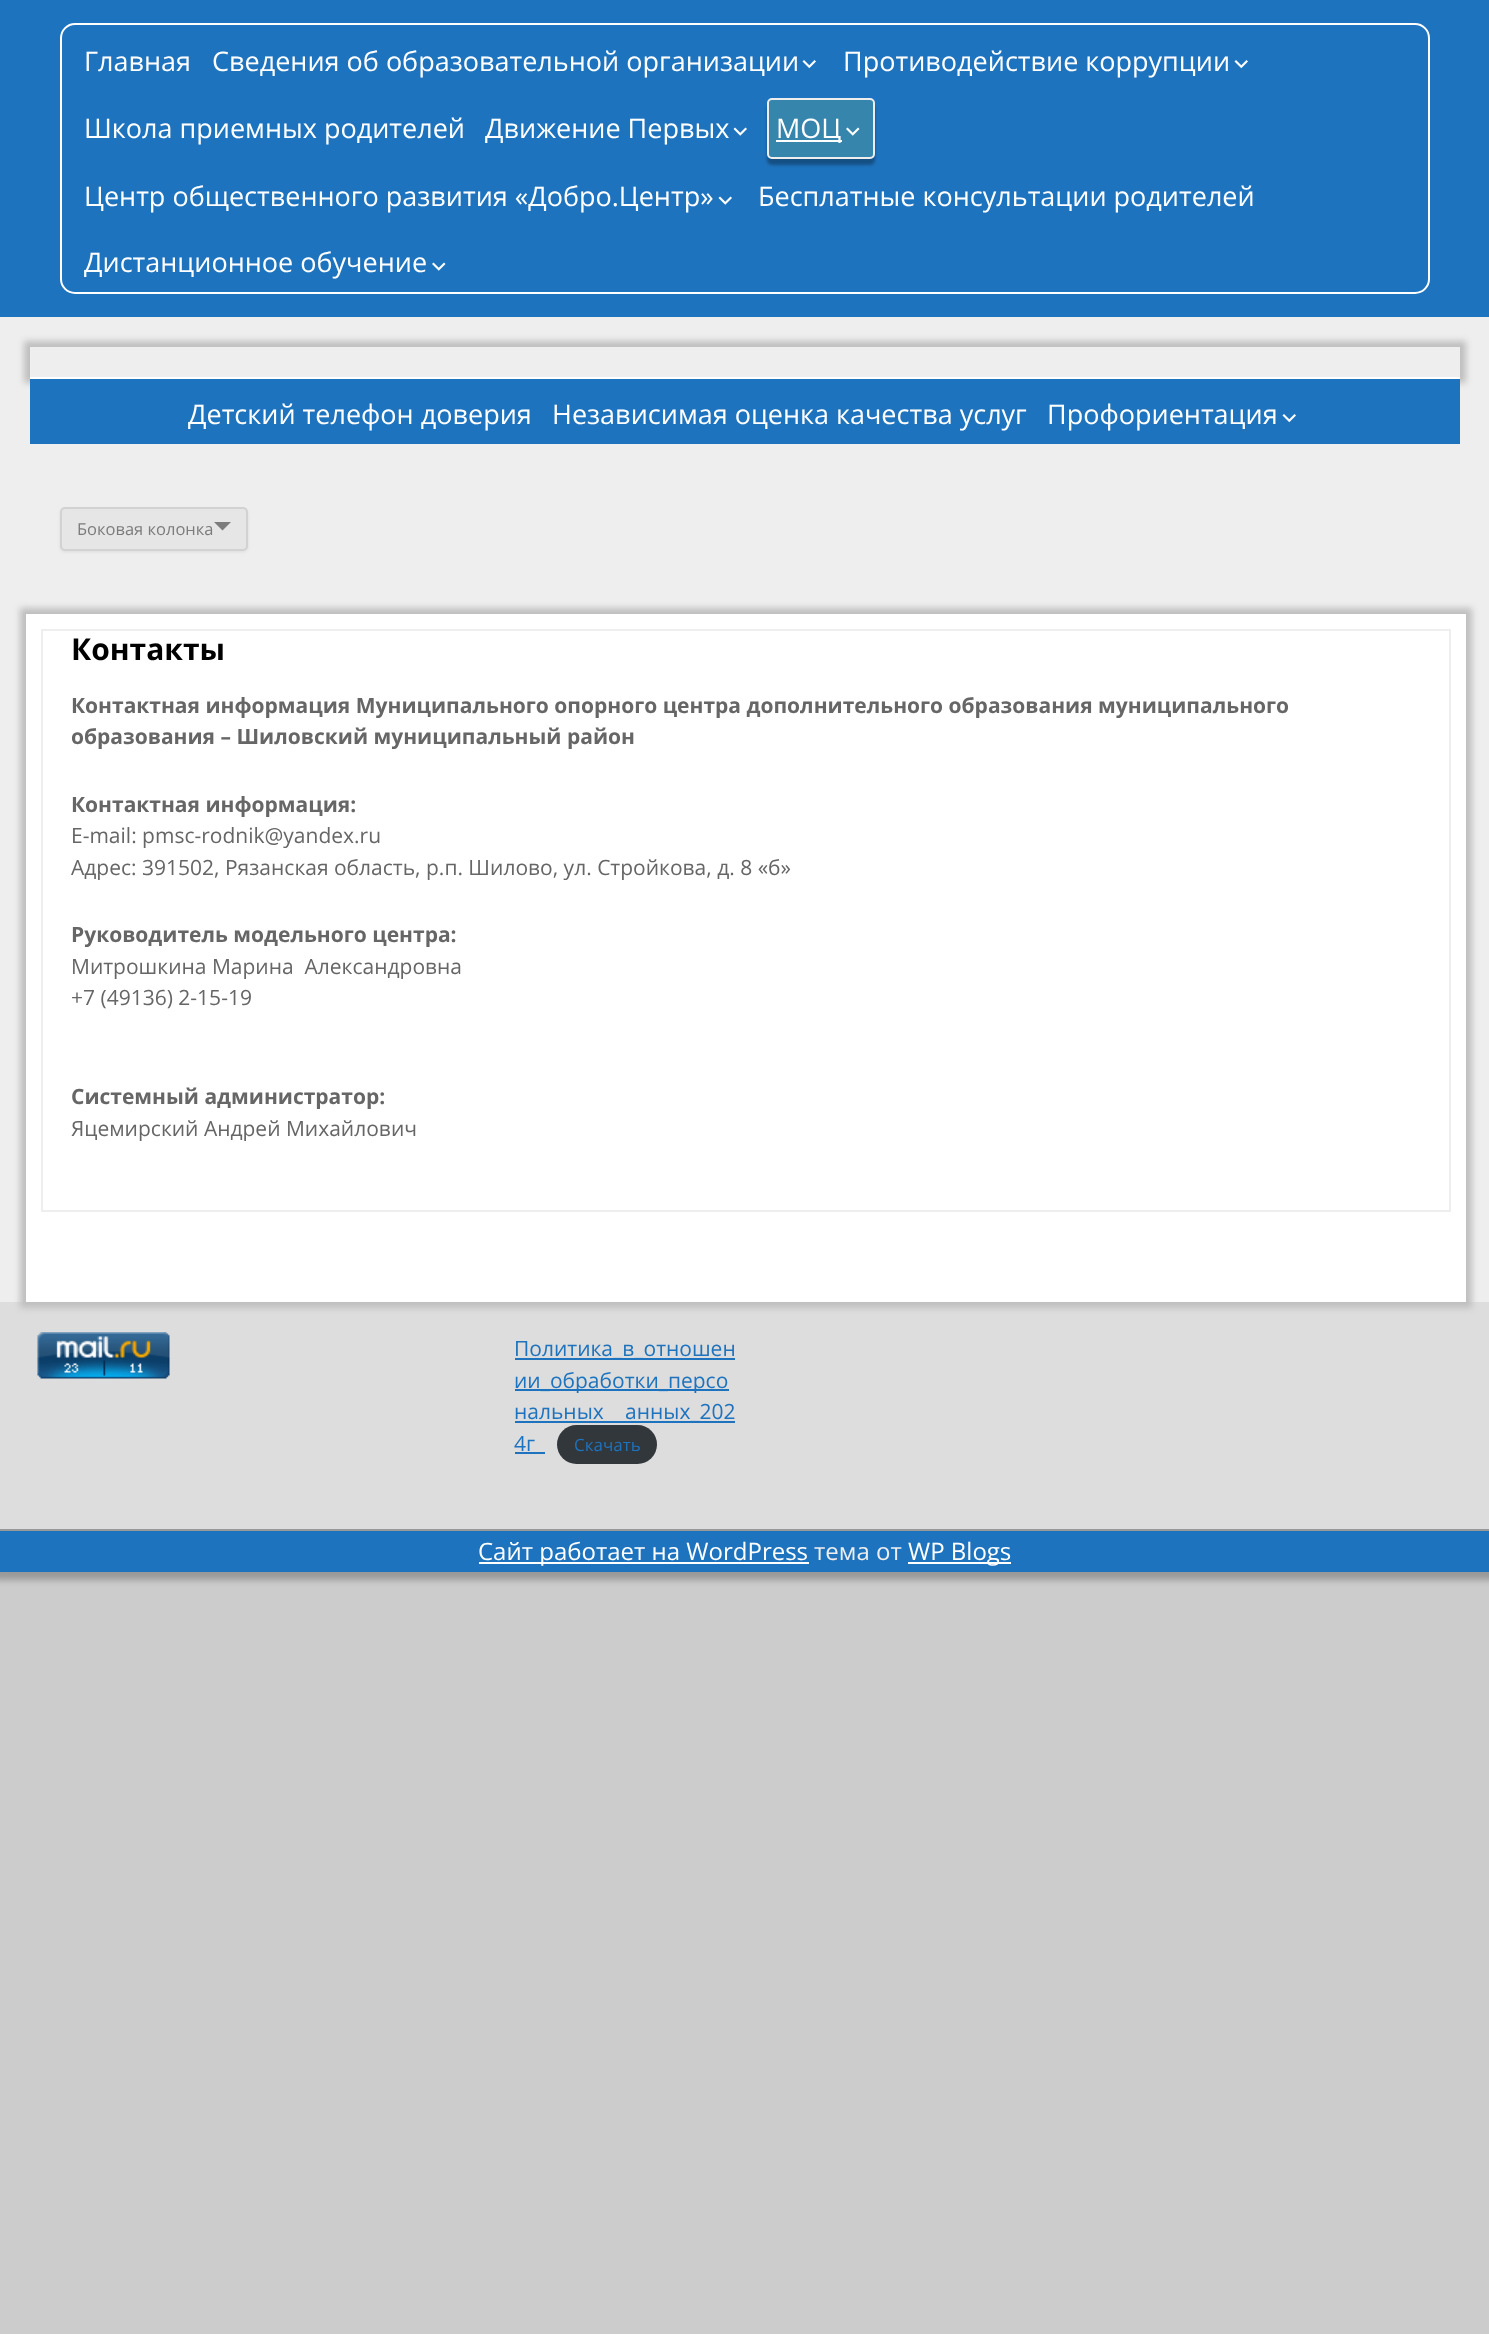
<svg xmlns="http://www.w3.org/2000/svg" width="1489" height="2334">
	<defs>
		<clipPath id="clip1"><path d="M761 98H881V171H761ZM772 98H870C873 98 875 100 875 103V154C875 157 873 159 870 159H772C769 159 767 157 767 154V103C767 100 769 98 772 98Z" clip-rule="evenodd" /></clipPath>
	</defs>
	<rect width="100%" height="100%" fill="#CCCCCC" />
	<rect x="-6" y="-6" width="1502" height="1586" fill="#999999" filter="blur(3px)" />
	<rect x="0" y="317" width="1489" height="985" fill="#EEEEEE" />
	<rect x="0" y="0" width="1489" height="317" fill="#1E73BE" />
	<rect x="61" y="24" width="1368" height="269" rx="14" fill="none" stroke="#FFFFFF" stroke-width="2" />
	<g font-family="Open Sans" font-size="27" fill="#FFFFFF">
		<text x="84" y="71">Главная</text>
		<text x="212" y="71">Сведения об образовательной организации</text>
	</g>
	<image x="802" y="60" width="14" height="9" href="assets/img1.png" />
	<text x="843" y="71" font-family="Open Sans" font-size="27" fill="#FFFFFF">Противодействие коррупции</text>
	<image x="1234" y="60" width="14" height="9" href="assets/img1.png" />
	<g font-family="Open Sans" font-size="27" fill="#FFFFFF">
		<text x="84" y="138">Школа приемных родителей</text>
		<text x="485" y="138">Движение Первых</text>
	</g>
	<image x="733" y="127" width="14" height="9" href="assets/img2.png" />
	<g clip-path="url(#clip1)">
		<rect x="767" y="104" width="108" height="61" rx="5" fill="#000000" fill-opacity="0.3" filter="blur(1.5px)" />
	</g>
	<rect x="768" y="99" width="106" height="59" rx="4" fill="#4D9799" fill-opacity="0.5" stroke="#EEEEEE" stroke-width="2" />
	<rect x="776" y="140" width="66" height="2" fill="#FFFFFF" />
	<text x="776" y="138" font-family="Open Sans" font-size="27" fill="#FFFFFF">МОЦ</text>
	<image x="846" y="127" width="14" height="9" href="assets/img3.png" />
	<text x="84" y="206" font-family="Open Sans" font-size="27" fill="#FFFFFF">Центр общественного развития «Добро.Центр»</text>
	<image x="718" y="196" width="14" height="9" href="assets/img2.png" />
	<g font-family="Open Sans" font-size="27" fill="#FFFFFF">
		<text x="758" y="206">Бесплатные консультации родителей</text>
		<text x="84" y="272">Дистанционное обучение</text>
	</g>
	<image x="432" y="262" width="14" height="9" href="assets/img4.png" />
	<rect x="24" y="341" width="1442" height="42" fill="#BFBFBF" filter="blur(3px)" />
	<rect x="30" y="347" width="1430" height="30" fill="#EEEEEE" />
	<rect x="30" y="379" width="1430" height="65" fill="#1E73BE" />
	<rect x="30" y="377" width="1430" height="2" fill="#FFFFFF" />
	<g font-family="Open Sans" font-size="27" fill="#FFFFFF">
		<text x="188" y="424">Детский телефон доверия</text>
		<text x="552" y="424">Независимая оценка качества услуг</text>
		<text x="1047" y="424">Профориентация</text>
	</g>
	<image x="1282" y="414" width="14" height="9" href="assets/img1.png" />
	<rect x="60" y="509" width="188" height="43" rx="5" fill="#404040" fill-opacity="0.1" filter="blur(1.5px)" />
	<rect x="61" y="508" width="186" height="42" rx="4" fill="#E6E6E6" stroke="#D2D2D2" stroke-width="2" />
	<text x="77" y="535" font-family="Open Sans" font-size="16.5" fill="#7C7C7C">Боковая колонка</text>
	<path d="M214 522H231L222.5 530.5Z" fill="#7C7C7C" />
	<rect x="0" y="1302" width="1489" height="227" fill="#DDDDDD" />
	<rect x="20" y="608" width="1452" height="700" fill="#BFBFBF" filter="blur(3px)" />
	<rect x="26" y="614" width="1440" height="688" fill="#FFFFFF" />
	<rect x="42" y="630" width="1408" height="581" fill="none" stroke="#EEEEEE" stroke-width="2" />
	<text x="71" y="660" font-family="Open Sans" font-size="30" font-weight="700" fill="#000000">Контакты</text>
	<g font-family="Open Sans" font-size="21" font-weight="700" fill="#666666">
		<text x="71" y="713">Контактная информация Муниципального опорного центра дополнительного образования муниципального</text>
		<text x="71" y="744">образования – Шиловский муниципальный район</text>
		<text x="71" y="812">Контактная информация:</text>
	</g>
	<g font-family="Open Sans" font-size="21" fill="#666666">
		<text x="71" y="843">E-mail: pmsc-rodnik@yandex.ru</text>
		<text x="71" y="875">Адрес: 391502, Рязанская область, р.п. Шилово, ул. Стройкова, д. 8 «б»</text>
	</g>
	<text x="71" y="942" font-family="Open Sans" font-size="21" font-weight="700" fill="#666666">Руководитель модельного центра:</text>
	<g font-family="Open Sans" font-size="21" fill="#666666">
		<text x="71" y="974" xml:space="preserve">Митрошкина Марина  Александровна</text>
		<text x="71" y="1005">+7 (49136) 2-15-19</text>
	</g>
	<text x="71" y="1104" font-family="Open Sans" font-size="21" font-weight="700" fill="#666666">Системный администратор:</text>
	<text x="71" y="1136" font-family="Open Sans" font-size="21" fill="#666666">Яцемирский Андрей Михайлович</text>
	<image x="37" y="1332" width="133" height="47" href="assets/img5.png" />
	<rect x="515" y="1358" width="220" height="2" fill="#1E73BE" />
	<text x="514" y="1356" font-family="Open Sans" font-size="21" fill="#1E73BE">Политика_в_отношен</text>
	<rect x="515" y="1389" width="214" height="2" fill="#1E73BE" />
	<g font-family="Open Sans" font-size="21" fill="#1E73BE">
		<text x="514" y="1388">ии_обработки_персо</text>
		<text x="514" y="1419">нальных</text>
	</g>
	<rect x="515" y="1421" width="220" height="2" fill="#1E73BE" />
	<g font-family="Open Sans" font-size="21" fill="#1E73BE">
		<text x="625" y="1419">анных_202</text>
		<text x="514" y="1451">4г</text>
	</g>
	<rect x="515" y="1452" width="30" height="2" fill="#1E73BE" />
	<rect x="557" y="1425" width="100" height="39" rx="19.5" fill="#32373C" />
	<text x="574" y="1451" font-family="Open Sans" font-size="17" fill="#1E73BE">Скачать</text>
	<rect x="0" y="1531" width="1489" height="41" fill="#1E73BE" />
	<rect x="479" y="1562" width="330" height="2" fill="#FFFFFF" />
	<text x="478" y="1560" font-family="Open Sans" font-size="24" fill="#FFFFFF">Сайт работает на WordPress</text>
	<text x="814" y="1560" font-family="Open Sans" font-size="24" fill="#EEEEEE">тема от</text>
	<rect x="908" y="1562" width="103" height="2" fill="#FFFFFF" />
	<text x="908" y="1560" font-family="Open Sans" font-size="24" fill="#FFFFFF">WP Blogs</text>
</svg>
